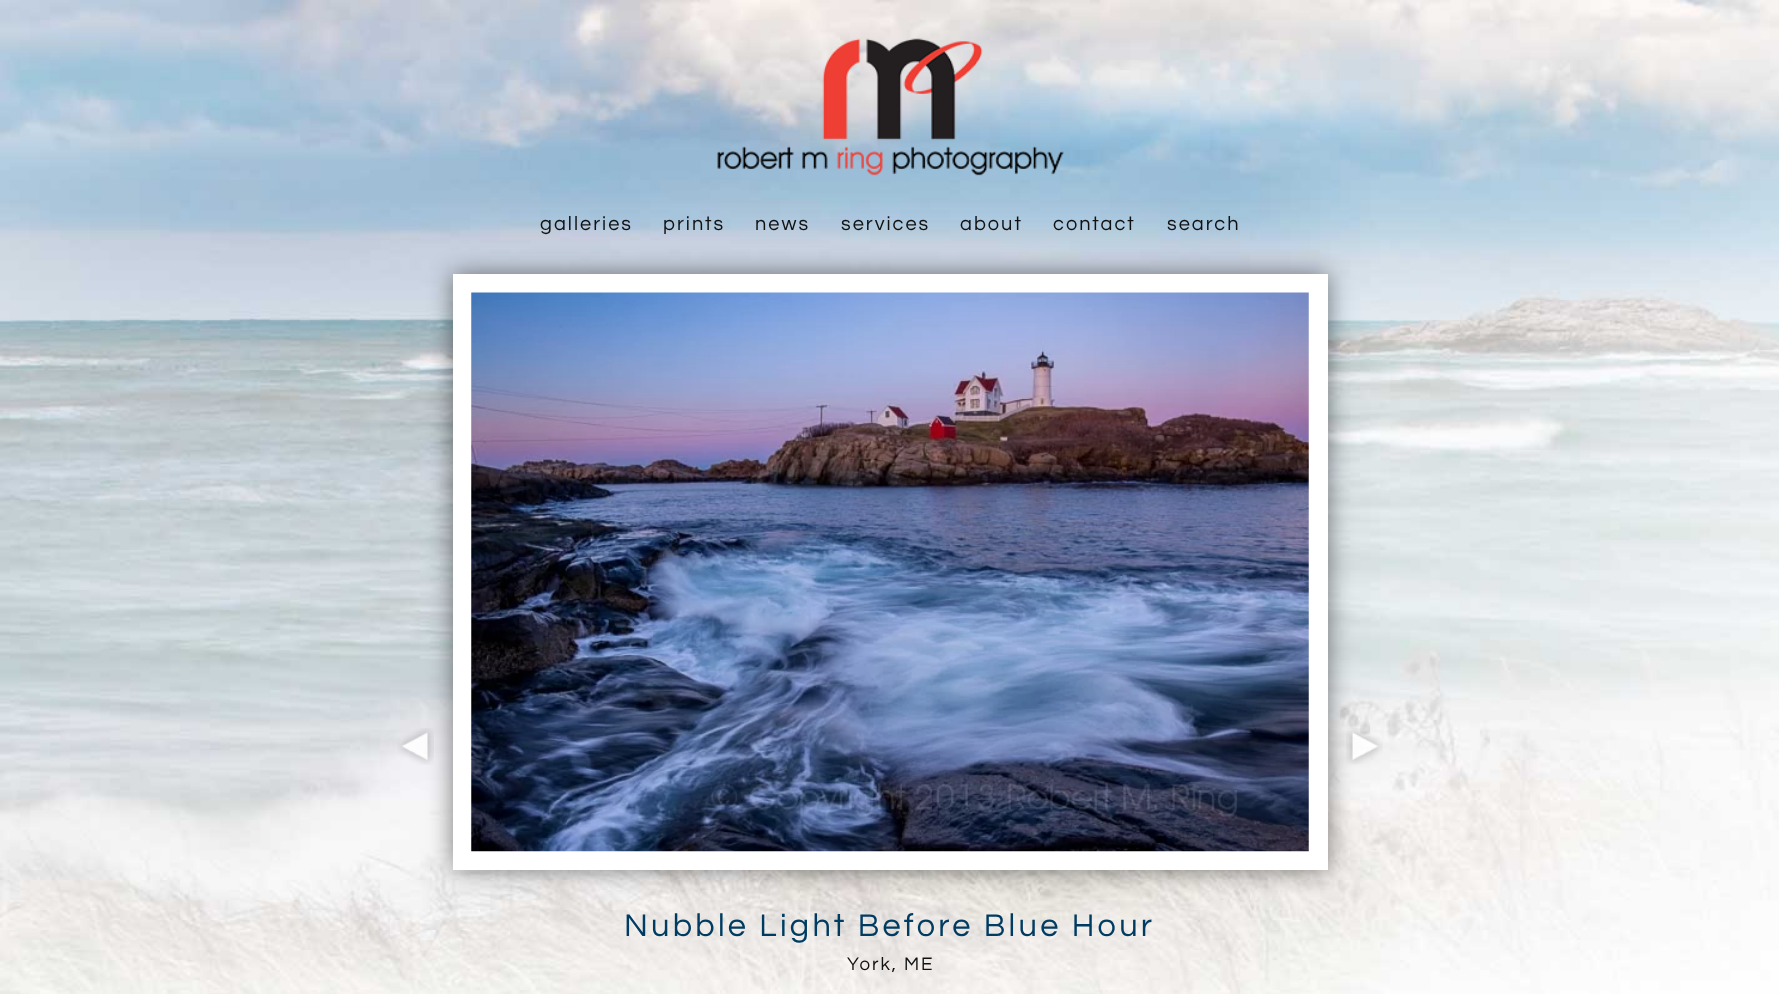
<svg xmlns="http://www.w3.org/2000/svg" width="1779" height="994">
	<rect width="100%" height="100%" fill="#FFFFFF" />
	<image x="0" y="0" width="1779" height="994" href="assets/img1.png" />
	<image x="717" y="38" width="347" height="138" href="assets/img2.png" />
	<g font-family="Questrial" font-size="20" letter-spacing="2" fill="#111111">
		<text x="540" y="230">galleries</text>
		<text x="663" y="230">prints</text>
		<text x="755" y="230">news</text>
		<text x="841" y="230">services</text>
		<text x="960" y="230">about</text>
		<text x="1053" y="230">contact</text>
		<text x="1167" y="230">search</text>
	</g>
	<image x="397" y="728" width="37" height="37" href="assets/img4.png" />
	<rect x="453" y="274" width="875" height="596" fill="#000000" fill-opacity="0.5" filter="blur(12.5px)" />
	<rect x="453" y="274" width="875" height="596" fill="#FFFFFF" />
	<image x="471" y="292" width="838" height="560" href="assets/img3.png" />
	<image x="1346" y="728" width="37" height="37" href="assets/img5.png" />
	<text x="624" y="936" font-family="Questrial" font-size="32.5" letter-spacing="3.25" fill="#003C62">Nubble Light Before Blue Hour</text>
	<text x="847" y="970" font-family="Questrial" font-size="18.75" letter-spacing="2" fill="#111111">York, ME</text>
</svg>
